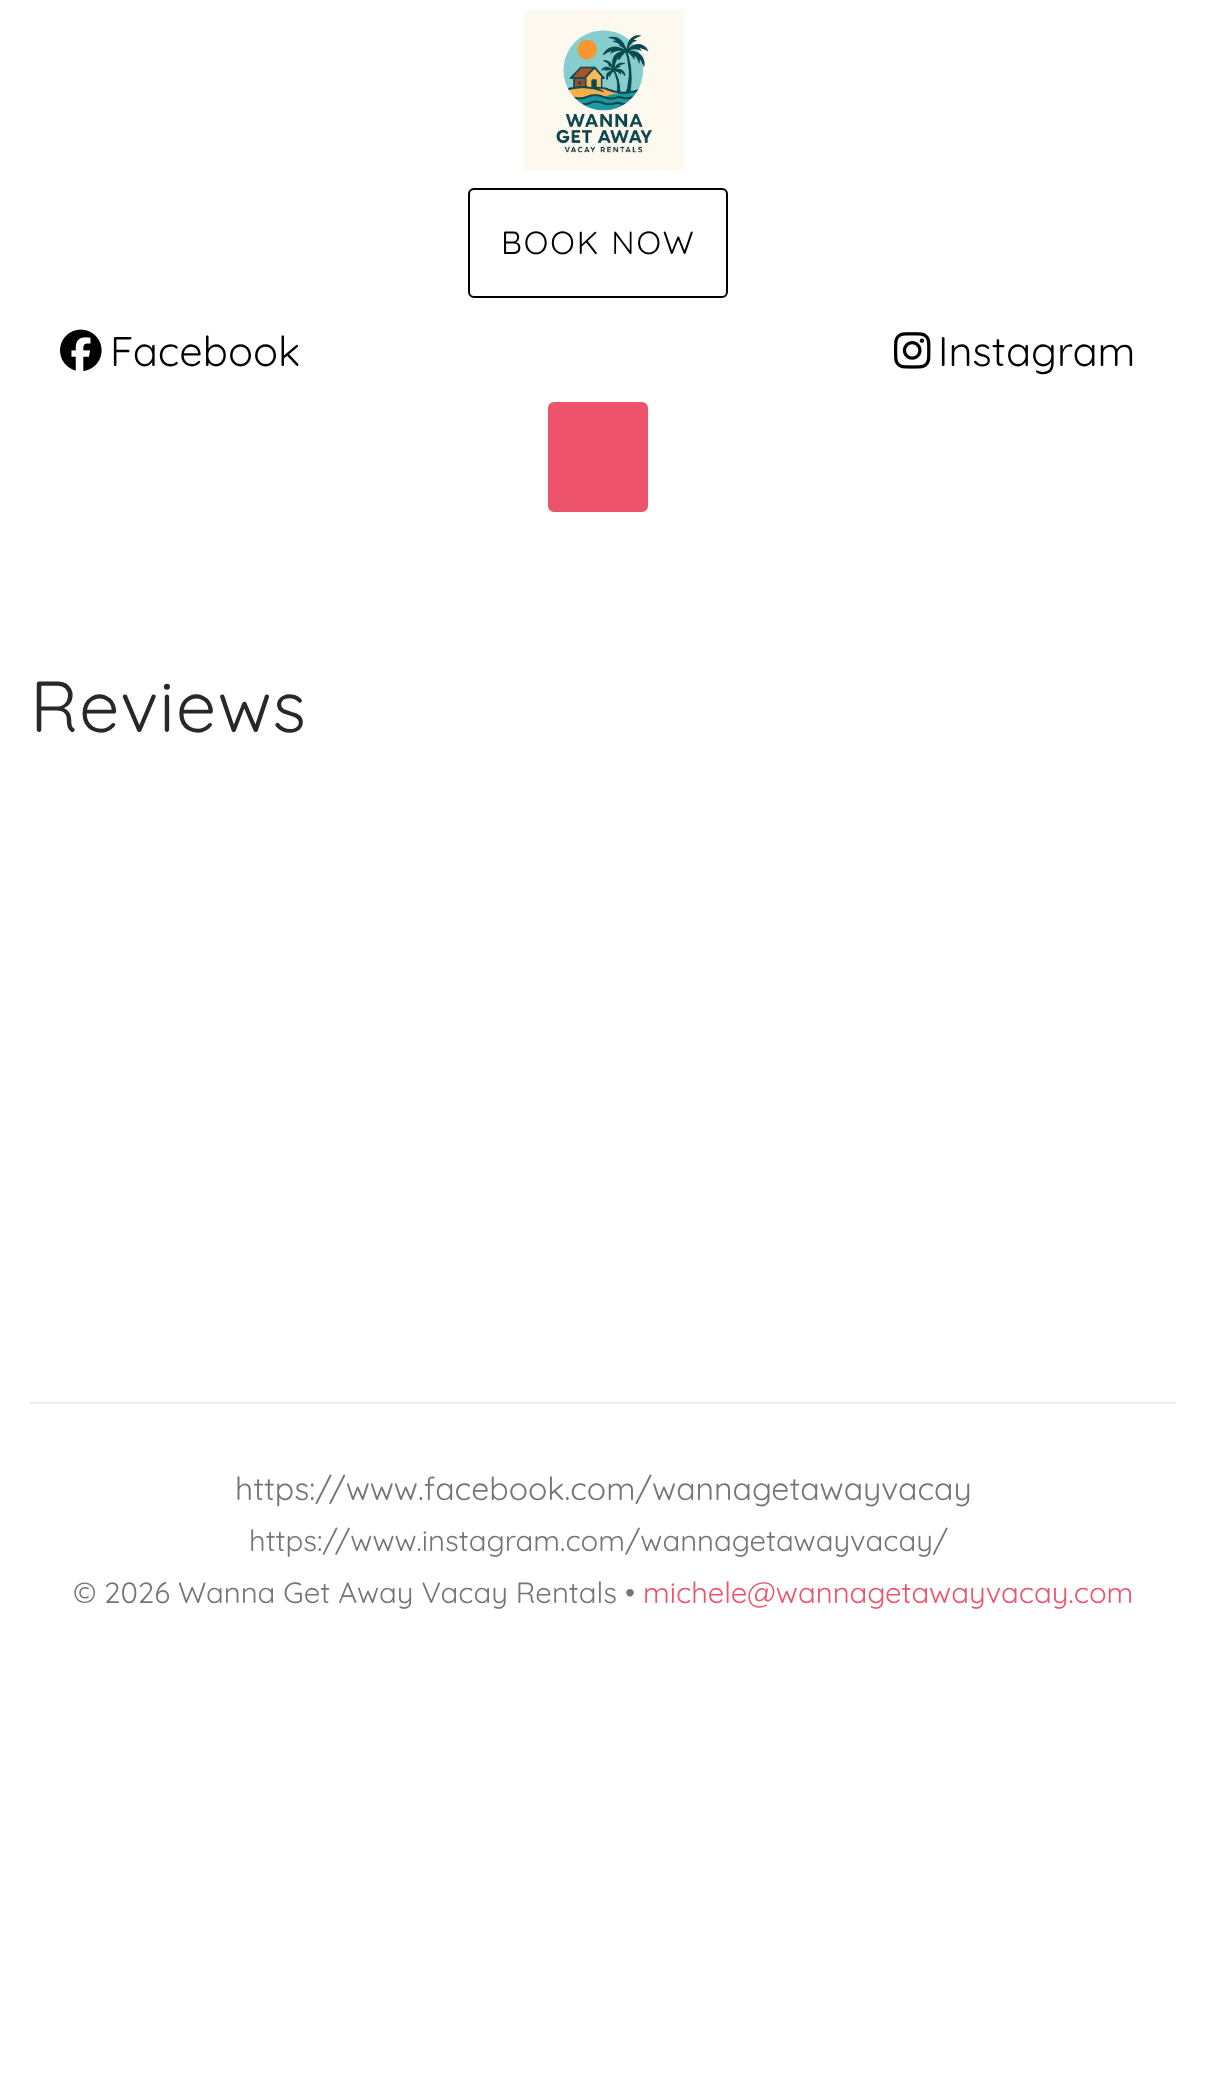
<svg xmlns="http://www.w3.org/2000/svg" width="1205" height="2090">
	<rect width="100%" height="100%" fill="#FFFFFF" />
	<image x="524" y="10" width="160" height="160" href="assets/img1.png" />
	<rect x="469" y="189" width="258" height="108" rx="5" fill="none" stroke="#000000" stroke-width="2" />
	<text x="501" y="254" font-family="Quicksand" font-size="32" letter-spacing="2" fill="#000000">BOOK NOW</text>
	<image x="60" y="329" width="42" height="42" href="assets/img2.png" />
	<text x="110" y="366" font-family="Quicksand" font-size="41.5" fill="#000000">Facebook</text>
	<image x="894" y="332" width="37" height="37" href="assets/img3.png" />
	<text x="938" y="366" font-family="Quicksand" font-size="41.5" fill="#000000">Instagram</text>
	<rect x="549" y="403" width="98" height="108" rx="5" fill="#ED536A" stroke="#ED536A" stroke-width="2" />
	<text x="30" y="732" font-family="Quicksand" font-size="72" letter-spacing="1" fill="#292727">Reviews</text>
	<rect x="30" y="1402" width="1146" height="2" fill="#EEEEEE" />
	<text x="235" y="1500" font-family="Quicksand" font-size="32" fill="#757575">https://www.facebook.com/wannagetawayvacay</text>
	<g font-family="Quicksand" font-size="29.3" fill="#757575">
		<text x="249" y="1551">https://www.instagram.com/wannagetawayvacay/</text>
		<text x="73" y="1603">© 2026 Wanna Get Away Vacay Rentals •</text>
	</g>
	<text x="643" y="1603" font-family="Quicksand" font-size="29.3" fill="#ED536A">michele@wannagetawayvacay.com</text>
</svg>
